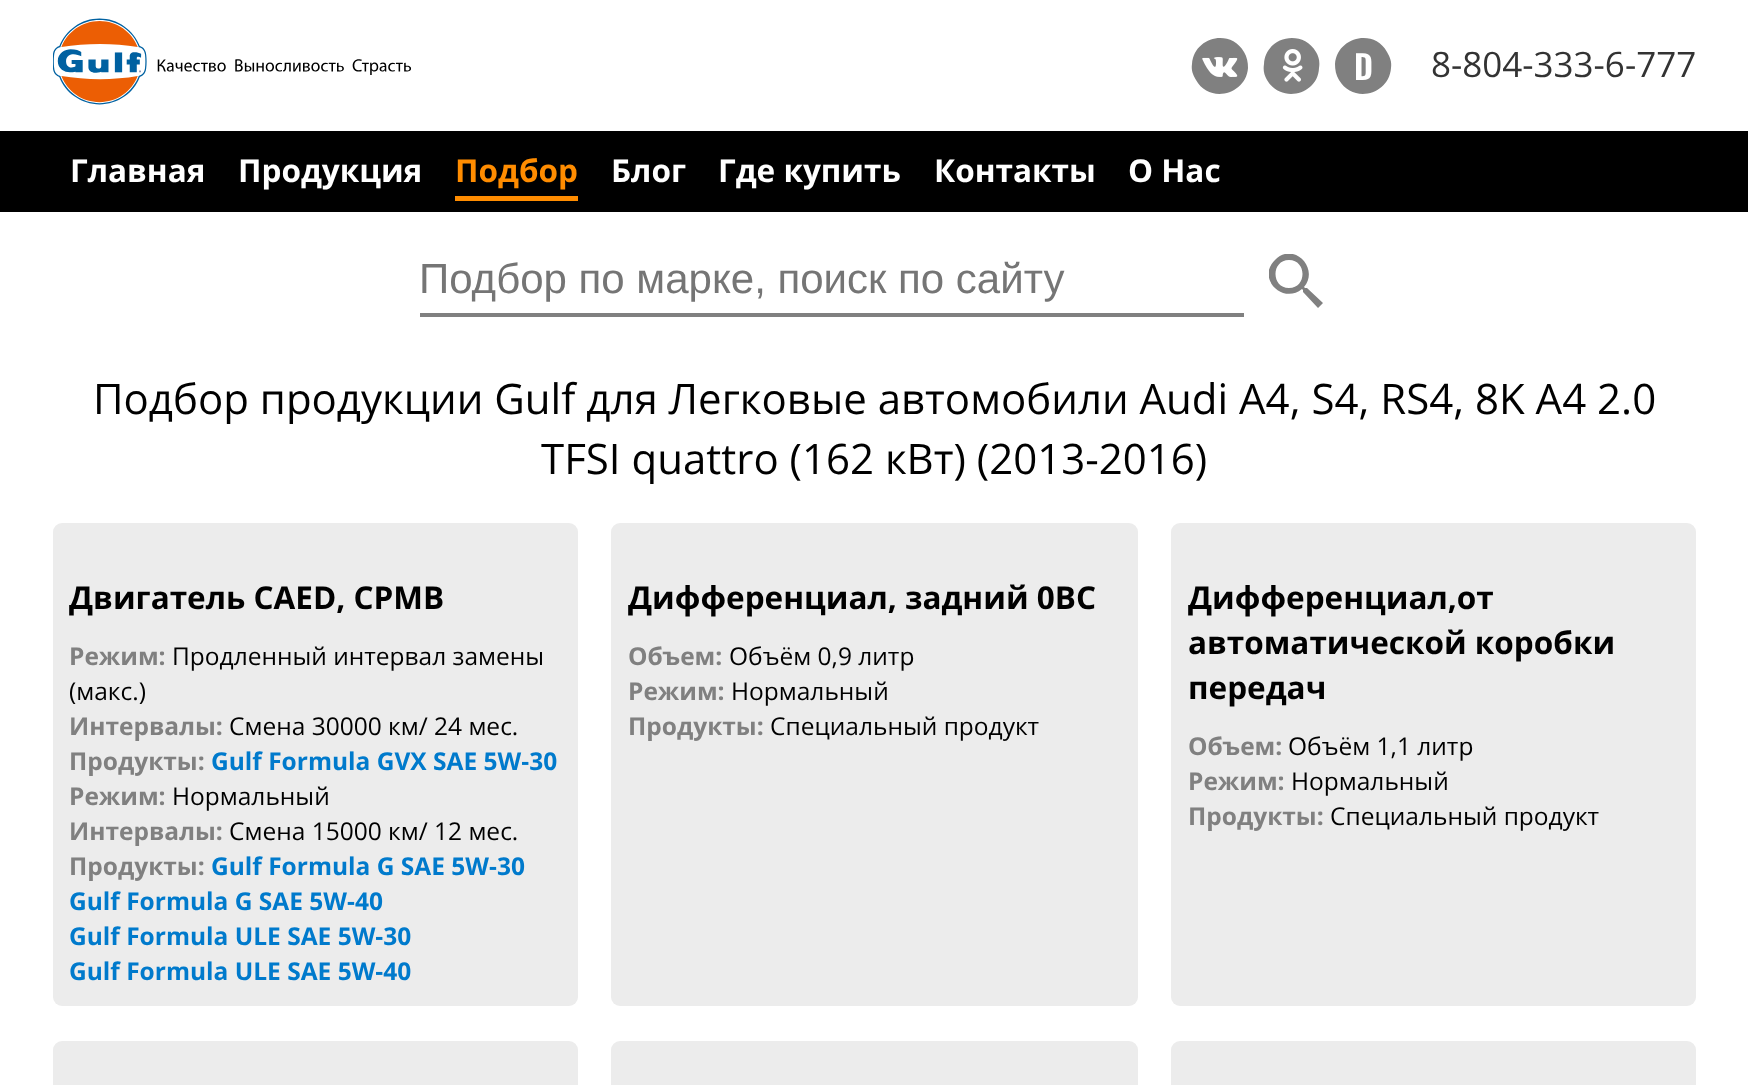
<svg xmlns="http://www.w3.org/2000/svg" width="1748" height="1085">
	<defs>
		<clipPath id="clip1"><rect x="1269" y="254" width="54" height="54" /></clipPath>
	</defs>
	<rect width="100%" height="100%" fill="#FFFFFF" />
	<image x="53" y="18" width="358" height="87" href="assets/img1.png" />
	<path d="M1244 52C1247 57 1248 62 1248 68C1246 95 1209 104 1196 80C1193 75 1191 70 1192 64C1194 37 1230 28 1244 52Z" fill="#808080" />
	<image x="1202" y="57" width="36" height="20" href="assets/img2.png" />
	<path d="M1316 52C1319 57 1320 62 1319 68C1318 95 1281 104 1267 80C1264 75 1263 70 1264 64C1265 37 1302 28 1316 52Z" fill="#808080" />
	<image x="1282" y="49" width="21" height="33" href="assets/img3.png" />
	<path d="M1387 52C1390 57 1392 62 1391 68C1389 95 1353 104 1339 80C1336 75 1335 70 1335 64C1337 37 1374 28 1387 52Z" fill="#808080" />
	<text x="1354" y="80" font-family="Oswald" font-size="33" font-weight="600" fill="#FFFFFF">D</text>
	<text x="1431" y="77" font-family="Open Sans" font-size="35" fill="#333333">8-804-333-6-777</text>
	<rect x="0" y="131" width="1748" height="81" fill="#000000" />
	<g font-family="Open Sans" font-size="31.5" font-weight="700" fill="#FFFFFF">
		<text x="70" y="182">Главная</text>
		<text x="238" y="182">Продукция</text>
	</g>
	<text x="455" y="182" font-family="Open Sans" font-size="31.5" font-weight="700" fill="#FF8C00">Подбор</text>
	<rect x="455" y="196" width="123" height="5" fill="#FF8C00" />
	<g font-family="Open Sans" font-size="31.5" font-weight="700" fill="#FFFFFF">
		<text x="611" y="182">Блог</text>
		<text x="718" y="182">Где купить</text>
		<text x="934" y="182">Контакты</text>
		<text x="1128" y="182">О Нас</text>
	</g>
	<rect x="420" y="313" width="824" height="4" fill="#808080" />
	<text x="419" y="293" font-family="Liberation Sans" font-size="42" fill="#757575">Подбор по марке, поиск по сайту</text>
	<g clip-path="url(#clip1)">
		<path d="M1307 288H1305L1304 287C1320 268 1293 241 1275 260C1256 278 1283 305 1302 289L1303 290V292L1318 308L1323 303ZM1289 288C1271 288 1271 260 1289 260C1307 260 1307 288 1289 288Z" fill="#808080" />
	</g>
	<g font-family="Open Sans" font-size="42" fill="#000000">
		<text x="93" y="414">Подбор продукции Gulf для Легковые автомобили Audi A4, S4, RS4, 8K A4 2.0</text>
		<text x="541" y="474">TFSI quattro (162 кВт) (2013-2016)</text>
	</g>
	<rect x="53" y="523" width="525" height="483" rx="9" fill="#ECECEC" />
	<text x="69" y="609" font-family="Open Sans" font-size="31.5" font-weight="700" fill="#000000">Двигатель CAED, CPMB</text>
	<text x="69" y="665" font-family="Open Sans" font-size="24.5" font-weight="700" fill="#808080">Режим:</text>
	<g font-family="Open Sans" font-size="24.5" fill="#000000">
		<text x="172" y="665">Продленный интервал замены</text>
		<text x="69" y="700">(макс.)</text>
	</g>
	<text x="69" y="735" font-family="Open Sans" font-size="24.5" font-weight="700" fill="#808080">Интервалы:</text>
	<text x="229" y="735" font-family="Open Sans" font-size="24.5" fill="#000000">Cмена 30000 км/ 24 мес.</text>
	<text x="69" y="770" font-family="Open Sans" font-size="24.5" font-weight="700" fill="#808080">Продукты:</text>
	<text x="211" y="770" font-family="Open Sans" font-size="24.5" font-weight="700" fill="#007ACC">Gulf Formula GVX SAE 5W-30</text>
	<text x="69" y="805" font-family="Open Sans" font-size="24.5" font-weight="700" fill="#808080">Режим:</text>
	<text x="172" y="805" font-family="Open Sans" font-size="24.5" fill="#000000">Нормальный</text>
	<text x="69" y="840" font-family="Open Sans" font-size="24.5" font-weight="700" fill="#808080">Интервалы:</text>
	<text x="229" y="840" font-family="Open Sans" font-size="24.5" fill="#000000">Cмена 15000 км/ 12 мес.</text>
	<text x="69" y="875" font-family="Open Sans" font-size="24.5" font-weight="700" fill="#808080">Продукты:</text>
	<g font-family="Open Sans" font-size="24.5" font-weight="700" fill="#007ACC">
		<text x="211" y="875">Gulf Formula G SAE 5W-30</text>
		<text x="69" y="910">Gulf Formula G SAE 5W-40</text>
		<text x="69" y="945">Gulf Formula ULE SAE 5W-30</text>
		<text x="69" y="980">Gulf Formula ULE SAE 5W-40</text>
	</g>
	<rect x="611" y="523" width="527" height="483" rx="9" fill="#ECECEC" />
	<text x="628" y="609" font-family="Open Sans" font-size="31.5" font-weight="700" fill="#000000">Дифференциал, задний 0BC</text>
	<text x="628" y="665" font-family="Open Sans" font-size="24.5" font-weight="700" fill="#808080">Объем:</text>
	<text x="729" y="665" font-family="Open Sans" font-size="24.5" fill="#000000">Oбъём 0,9 литр</text>
	<text x="628" y="700" font-family="Open Sans" font-size="24.5" font-weight="700" fill="#808080">Режим:</text>
	<text x="731" y="700" font-family="Open Sans" font-size="24.5" fill="#000000">Нормальный</text>
	<text x="628" y="735" font-family="Open Sans" font-size="24.5" font-weight="700" fill="#808080">Продукты:</text>
	<text x="770" y="735" font-family="Open Sans" font-size="24.5" fill="#000000">Специальный продукт</text>
	<rect x="1171" y="523" width="525" height="483" rx="9" fill="#ECECEC" />
	<g font-family="Open Sans" font-size="31.5" font-weight="700" fill="#000000">
		<text x="1188" y="609">Дифференциал,от</text>
		<text x="1188" y="654">автоматической коробки</text>
		<text x="1188" y="699">передач</text>
	</g>
	<text x="1188" y="755" font-family="Open Sans" font-size="24.5" font-weight="700" fill="#808080">Объем:</text>
	<text x="1288" y="755" font-family="Open Sans" font-size="24.5" fill="#000000">Oбъём 1,1 литр</text>
	<text x="1188" y="790" font-family="Open Sans" font-size="24.5" font-weight="700" fill="#808080">Режим:</text>
	<text x="1291" y="790" font-family="Open Sans" font-size="24.5" fill="#000000">Нормальный</text>
	<text x="1188" y="825" font-family="Open Sans" font-size="24.5" font-weight="700" fill="#808080">Продукты:</text>
	<text x="1330" y="825" font-family="Open Sans" font-size="24.5" fill="#000000">Специальный продукт</text>
	<rect x="53" y="1041" width="525" height="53" rx="9" fill="#ECECEC" />
	<rect x="611" y="1041" width="527" height="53" rx="9" fill="#ECECEC" />
	<rect x="1171" y="1041" width="525" height="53" rx="9" fill="#ECECEC" />
</svg>
